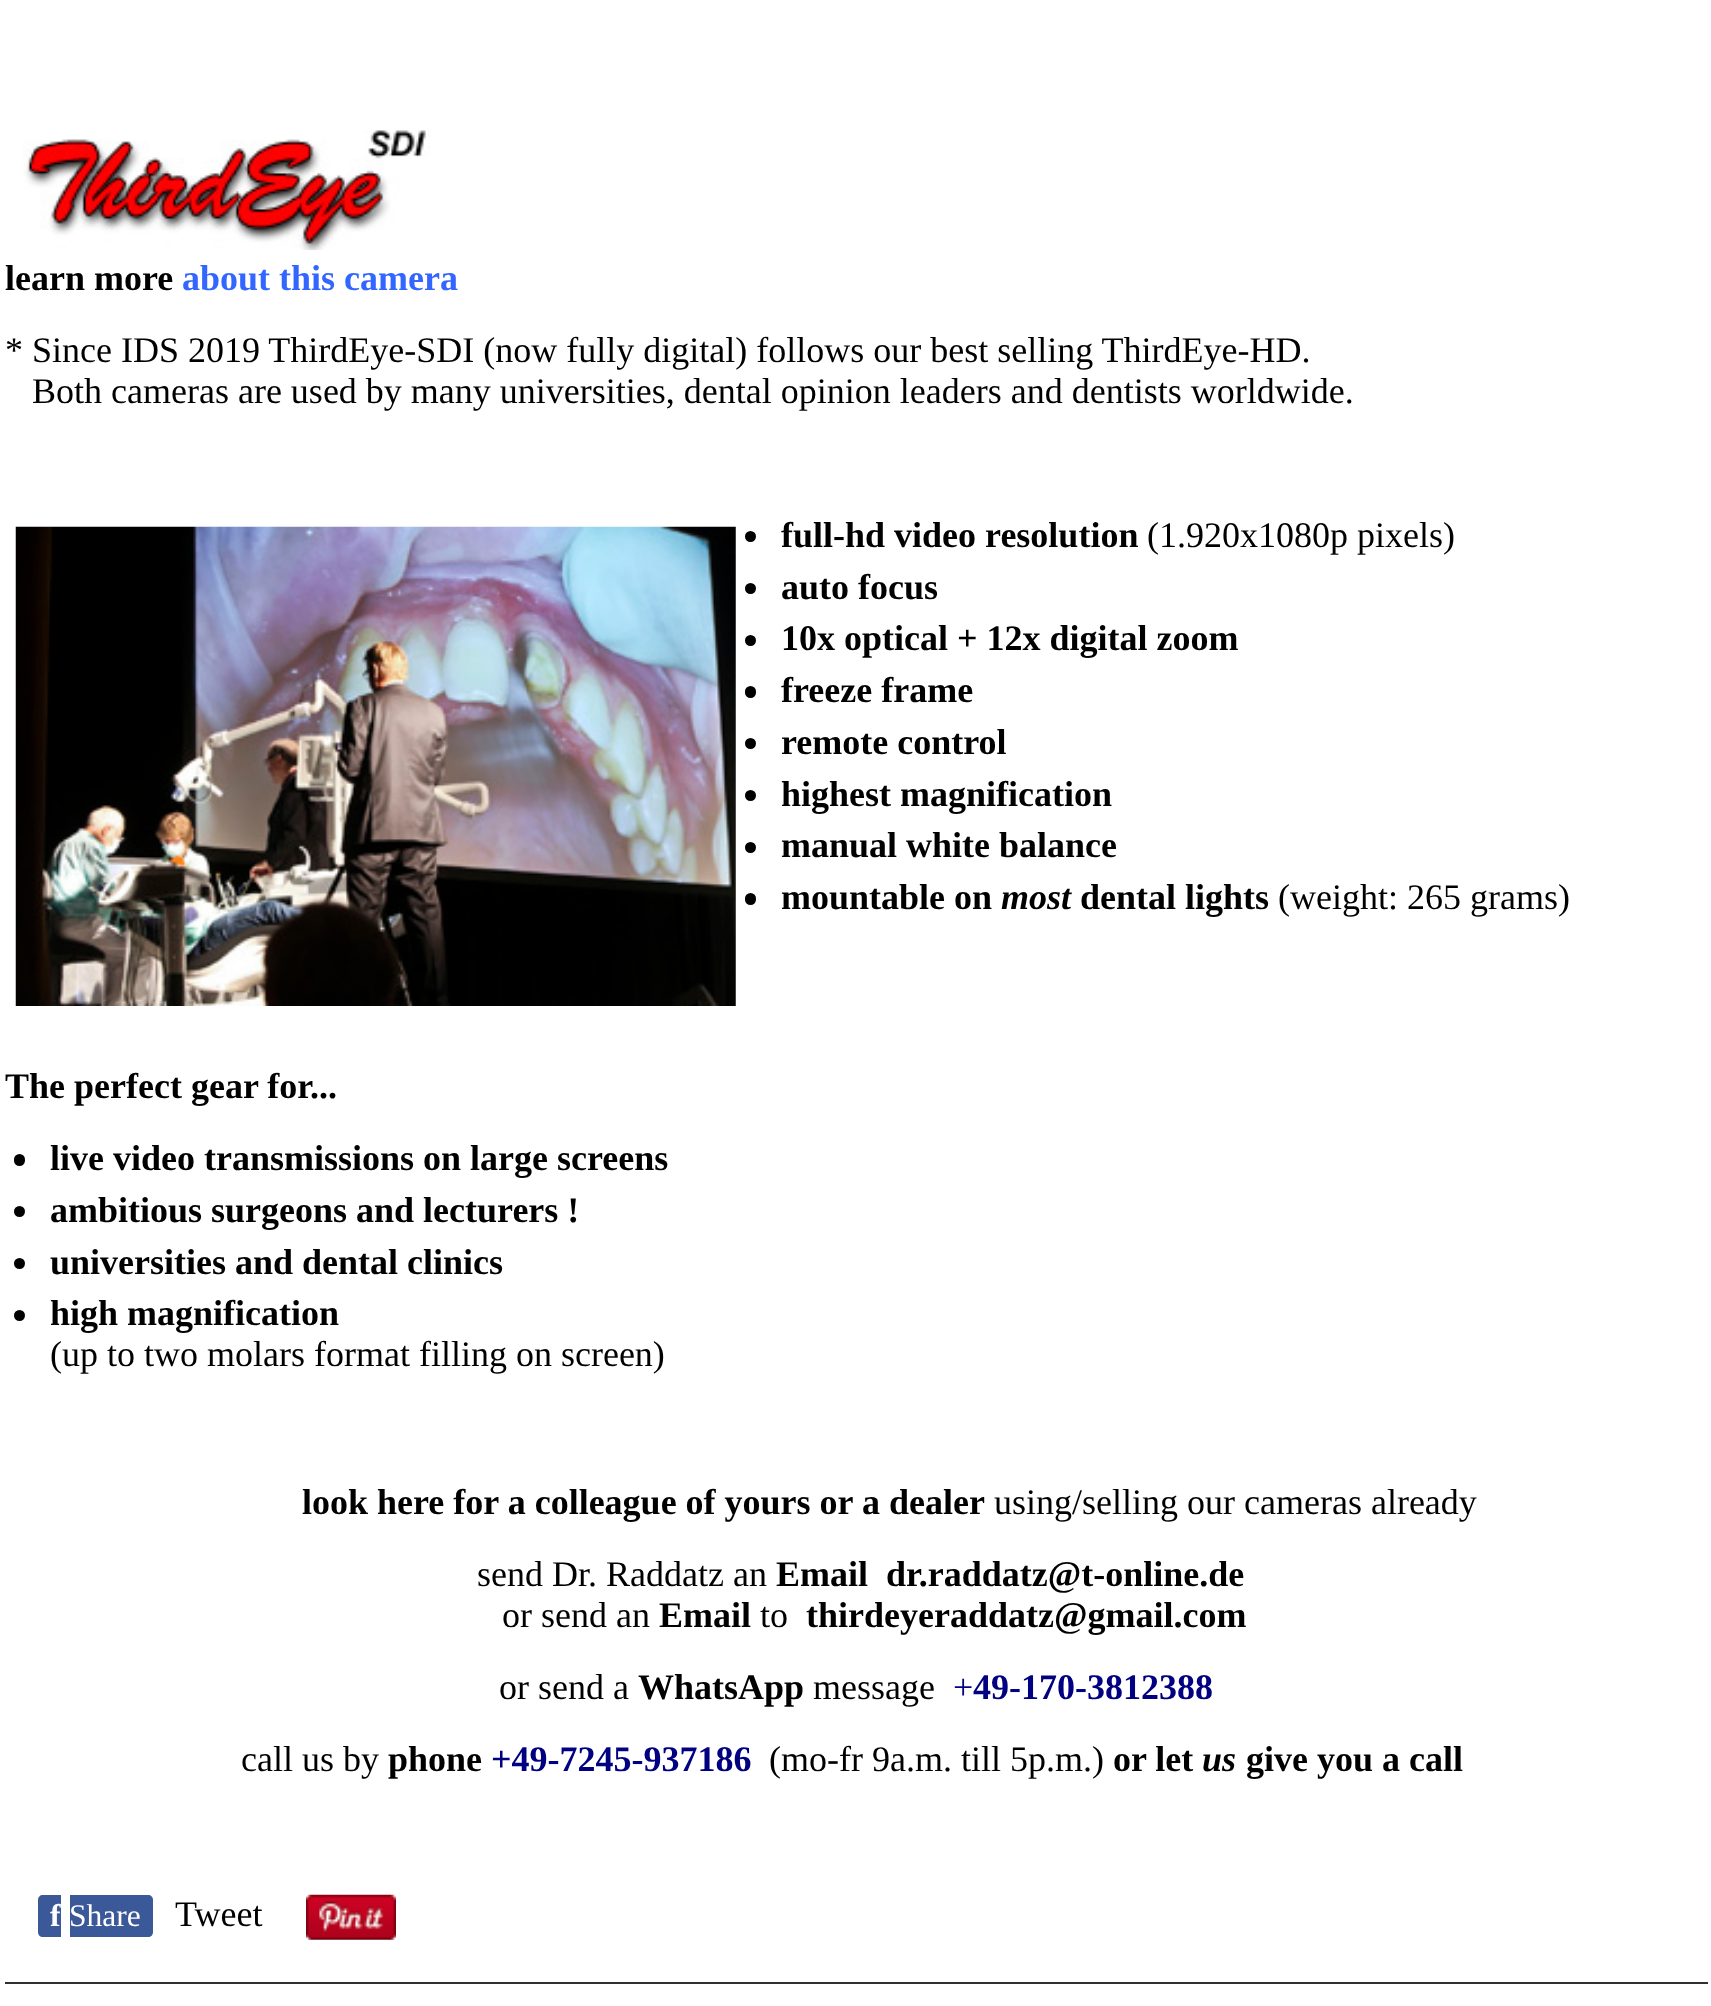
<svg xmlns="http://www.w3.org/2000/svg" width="1711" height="2006">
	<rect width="100%" height="100%" fill="#FFFFFF" />
	<image x="23" y="130" width="408" height="120" href="assets/img1.png" />
	<text x="5" y="290" font-family="Liberation Serif" font-size="36" font-weight="700" fill="#000000">learn more</text>
	<text x="182" y="290" font-family="Liberation Serif" font-size="36" font-weight="700" fill="#3366FF">about this camera</text>
	<g font-family="Liberation Serif" font-size="36" fill="#000000">
		<text x="5" y="362">* Since IDS 2019 ThirdEye-SDI (now fully digital) follows our best selling ThirdEye-HD.</text>
		<text x="32" y="403">Both cameras are used by many universities, dental opinion leaders and dentists worldwide.</text>
	</g>
	<image x="15" y="526" width="721" height="480" href="assets/img2.png" />
	<circle cx="750.5" cy="536.5" r="5.5" fill="#000000" />
	<text x="781" y="547" font-family="Liberation Serif" font-size="36" font-weight="700" fill="#000000">full-hd video resolution</text>
	<text x="1147" y="547" font-family="Liberation Serif" font-size="36" fill="#000000">(1.920x1080p pixels)</text>
	<circle cx="750.5" cy="588.5" r="5.5" fill="#000000" />
	<text x="781" y="599" font-family="Liberation Serif" font-size="36" font-weight="700" fill="#000000">auto focus</text>
	<circle cx="750.5" cy="640.5" r="5.5" fill="#000000" />
	<text x="781" y="650" font-family="Liberation Serif" font-size="36" font-weight="700" fill="#000000">10x optical + 12x digital zoom</text>
	<rect x="745" y="686" width="11" height="12" rx="5.5" fill="#000000" />
	<text x="781" y="702" font-family="Liberation Serif" font-size="36" font-weight="700" fill="#000000">freeze frame</text>
	<circle cx="750.5" cy="743.5" r="5.5" fill="#000000" />
	<text x="781" y="754" font-family="Liberation Serif" font-size="36" font-weight="700" fill="#000000">remote control</text>
	<circle cx="750.5" cy="795.5" r="5.5" fill="#000000" />
	<text x="781" y="806" font-family="Liberation Serif" font-size="36" font-weight="700" fill="#000000">highest magnification</text>
	<circle cx="750.5" cy="847.5" r="5.5" fill="#000000" />
	<text x="781" y="857" font-family="Liberation Serif" font-size="36" font-weight="700" fill="#000000">manual white balance</text>
	<rect x="745" y="893" width="11" height="12" rx="5.5" fill="#000000" />
	<text x="781" y="909" font-family="Liberation Serif" font-size="36" font-weight="700" fill="#000000">mountable on</text>
	<text x="1001" y="909" font-family="Liberation Serif" font-size="36" font-weight="700" font-style="italic" fill="#000000">most</text>
	<text x="1080" y="909" font-family="Liberation Serif" font-size="36" font-weight="700" fill="#000000">dental lights</text>
	<text x="1278" y="909" font-family="Liberation Serif" font-size="36" fill="#000000">(weight: 265 grams)</text>
	<text x="5" y="1098" font-family="Liberation Serif" font-size="36" font-weight="700" fill="#000000">The perfect gear for...</text>
	<rect x="14" y="1154" width="11" height="12" rx="5.5" fill="#000000" />
	<text x="50" y="1170" font-family="Liberation Serif" font-size="36" font-weight="700" fill="#000000">live video transmissions on large screens</text>
	<circle cx="19.5" cy="1211.5" r="5.5" fill="#000000" />
	<text x="50" y="1222" font-family="Liberation Serif" font-size="36" font-weight="700" fill="#000000">ambitious surgeons and lecturers !</text>
	<circle cx="19.5" cy="1263.5" r="5.5" fill="#000000" />
	<text x="50" y="1274" font-family="Liberation Serif" font-size="36" font-weight="700" fill="#000000">universities and dental clinics</text>
	<circle cx="19.5" cy="1315.5" r="5.5" fill="#000000" />
	<text x="50" y="1325" font-family="Liberation Serif" font-size="36" font-weight="700" fill="#000000">high magnification</text>
	<text x="50" y="1366" font-family="Liberation Serif" font-size="36" fill="#000000">(up to two molars format filling on screen)</text>
	<text x="302" y="1514" font-family="Liberation Serif" font-size="36" font-weight="700" fill="#000000">look here for a colleague of yours or a dealer</text>
	<g font-family="Liberation Serif" font-size="36" fill="#000000">
		<text x="994" y="1514">using/selling our cameras already</text>
		<text x="477" y="1586">send Dr. Raddatz an</text>
	</g>
	<g font-family="Liberation Serif" font-size="36" font-weight="700" fill="#000000">
		<text x="776" y="1586">Email</text>
		<text x="886" y="1586">dr.raddatz@t-online.de</text>
	</g>
	<text x="502" y="1627" font-family="Liberation Serif" font-size="36" fill="#000000">or send an</text>
	<text x="659" y="1627" font-family="Liberation Serif" font-size="36" font-weight="700" fill="#000000">Email</text>
	<text x="760" y="1627" font-family="Liberation Serif" font-size="36" fill="#000000">to</text>
	<text x="806" y="1627" font-family="Liberation Serif" font-size="36" font-weight="700" fill="#000000">thirdeyeraddatz@gmail.com</text>
	<text x="499" y="1699" font-family="Liberation Serif" font-size="36" fill="#000000">or send a</text>
	<text x="638" y="1699" font-family="Liberation Serif" font-size="36" font-weight="700" fill="#000000">WhatsApp</text>
	<text x="813" y="1699" font-family="Liberation Serif" font-size="36" fill="#000000">message</text>
	<text x="953" y="1699" font-family="Liberation Serif" font-size="36" fill="#000080">+</text>
	<text x="973" y="1699" font-family="Liberation Serif" font-size="36" font-weight="700" fill="#000080">49-170-3812388</text>
	<text x="241" y="1771" font-family="Liberation Serif" font-size="36" fill="#000000">call us by</text>
	<text x="388" y="1771" font-family="Liberation Serif" font-size="36" font-weight="700" fill="#000000">phone</text>
	<text x="491" y="1771" font-family="Liberation Serif" font-size="36" font-weight="700" fill="#000080">+49-7245-937186</text>
	<text x="769" y="1771" font-family="Liberation Serif" font-size="36" fill="#000000">(mo-fr 9a.m. till 5p.m.)</text>
	<text x="1113" y="1771" font-family="Liberation Serif" font-size="36" font-weight="700" fill="#000000">or let</text>
	<text x="1202" y="1771" font-family="Liberation Serif" font-size="36" font-weight="700" font-style="italic" fill="#000000">us</text>
	<text x="1246" y="1771" font-family="Liberation Serif" font-size="36" font-weight="700" fill="#000000">give you a call</text>
	<path d="M43 1895H61V1937H43C40 1937 38 1935 38 1932V1900C38 1897 40 1895 43 1895Z" fill="#3B5998" />
	<text x="50" y="1926" font-family="Liberation Serif" font-size="31.5" font-weight="700" fill="#FFFFFF">f</text>
	<path d="M70 1895H148C151 1895 153 1897 153 1900V1932C153 1935 151 1937 148 1937H70Z" fill="#3B5998" />
	<text x="69" y="1926" font-family="Liberation Serif" font-size="31.5" fill="#FFFFFF">Share</text>
	<text x="175" y="1926" font-family="Liberation Serif" font-size="36" fill="#000000">Tweet</text>
	<image x="306" y="1894" width="90" height="46" href="assets/img3.png" />
	<rect x="5" y="1982" width="1703" height="2" fill="#2F2F2F" />
</svg>
